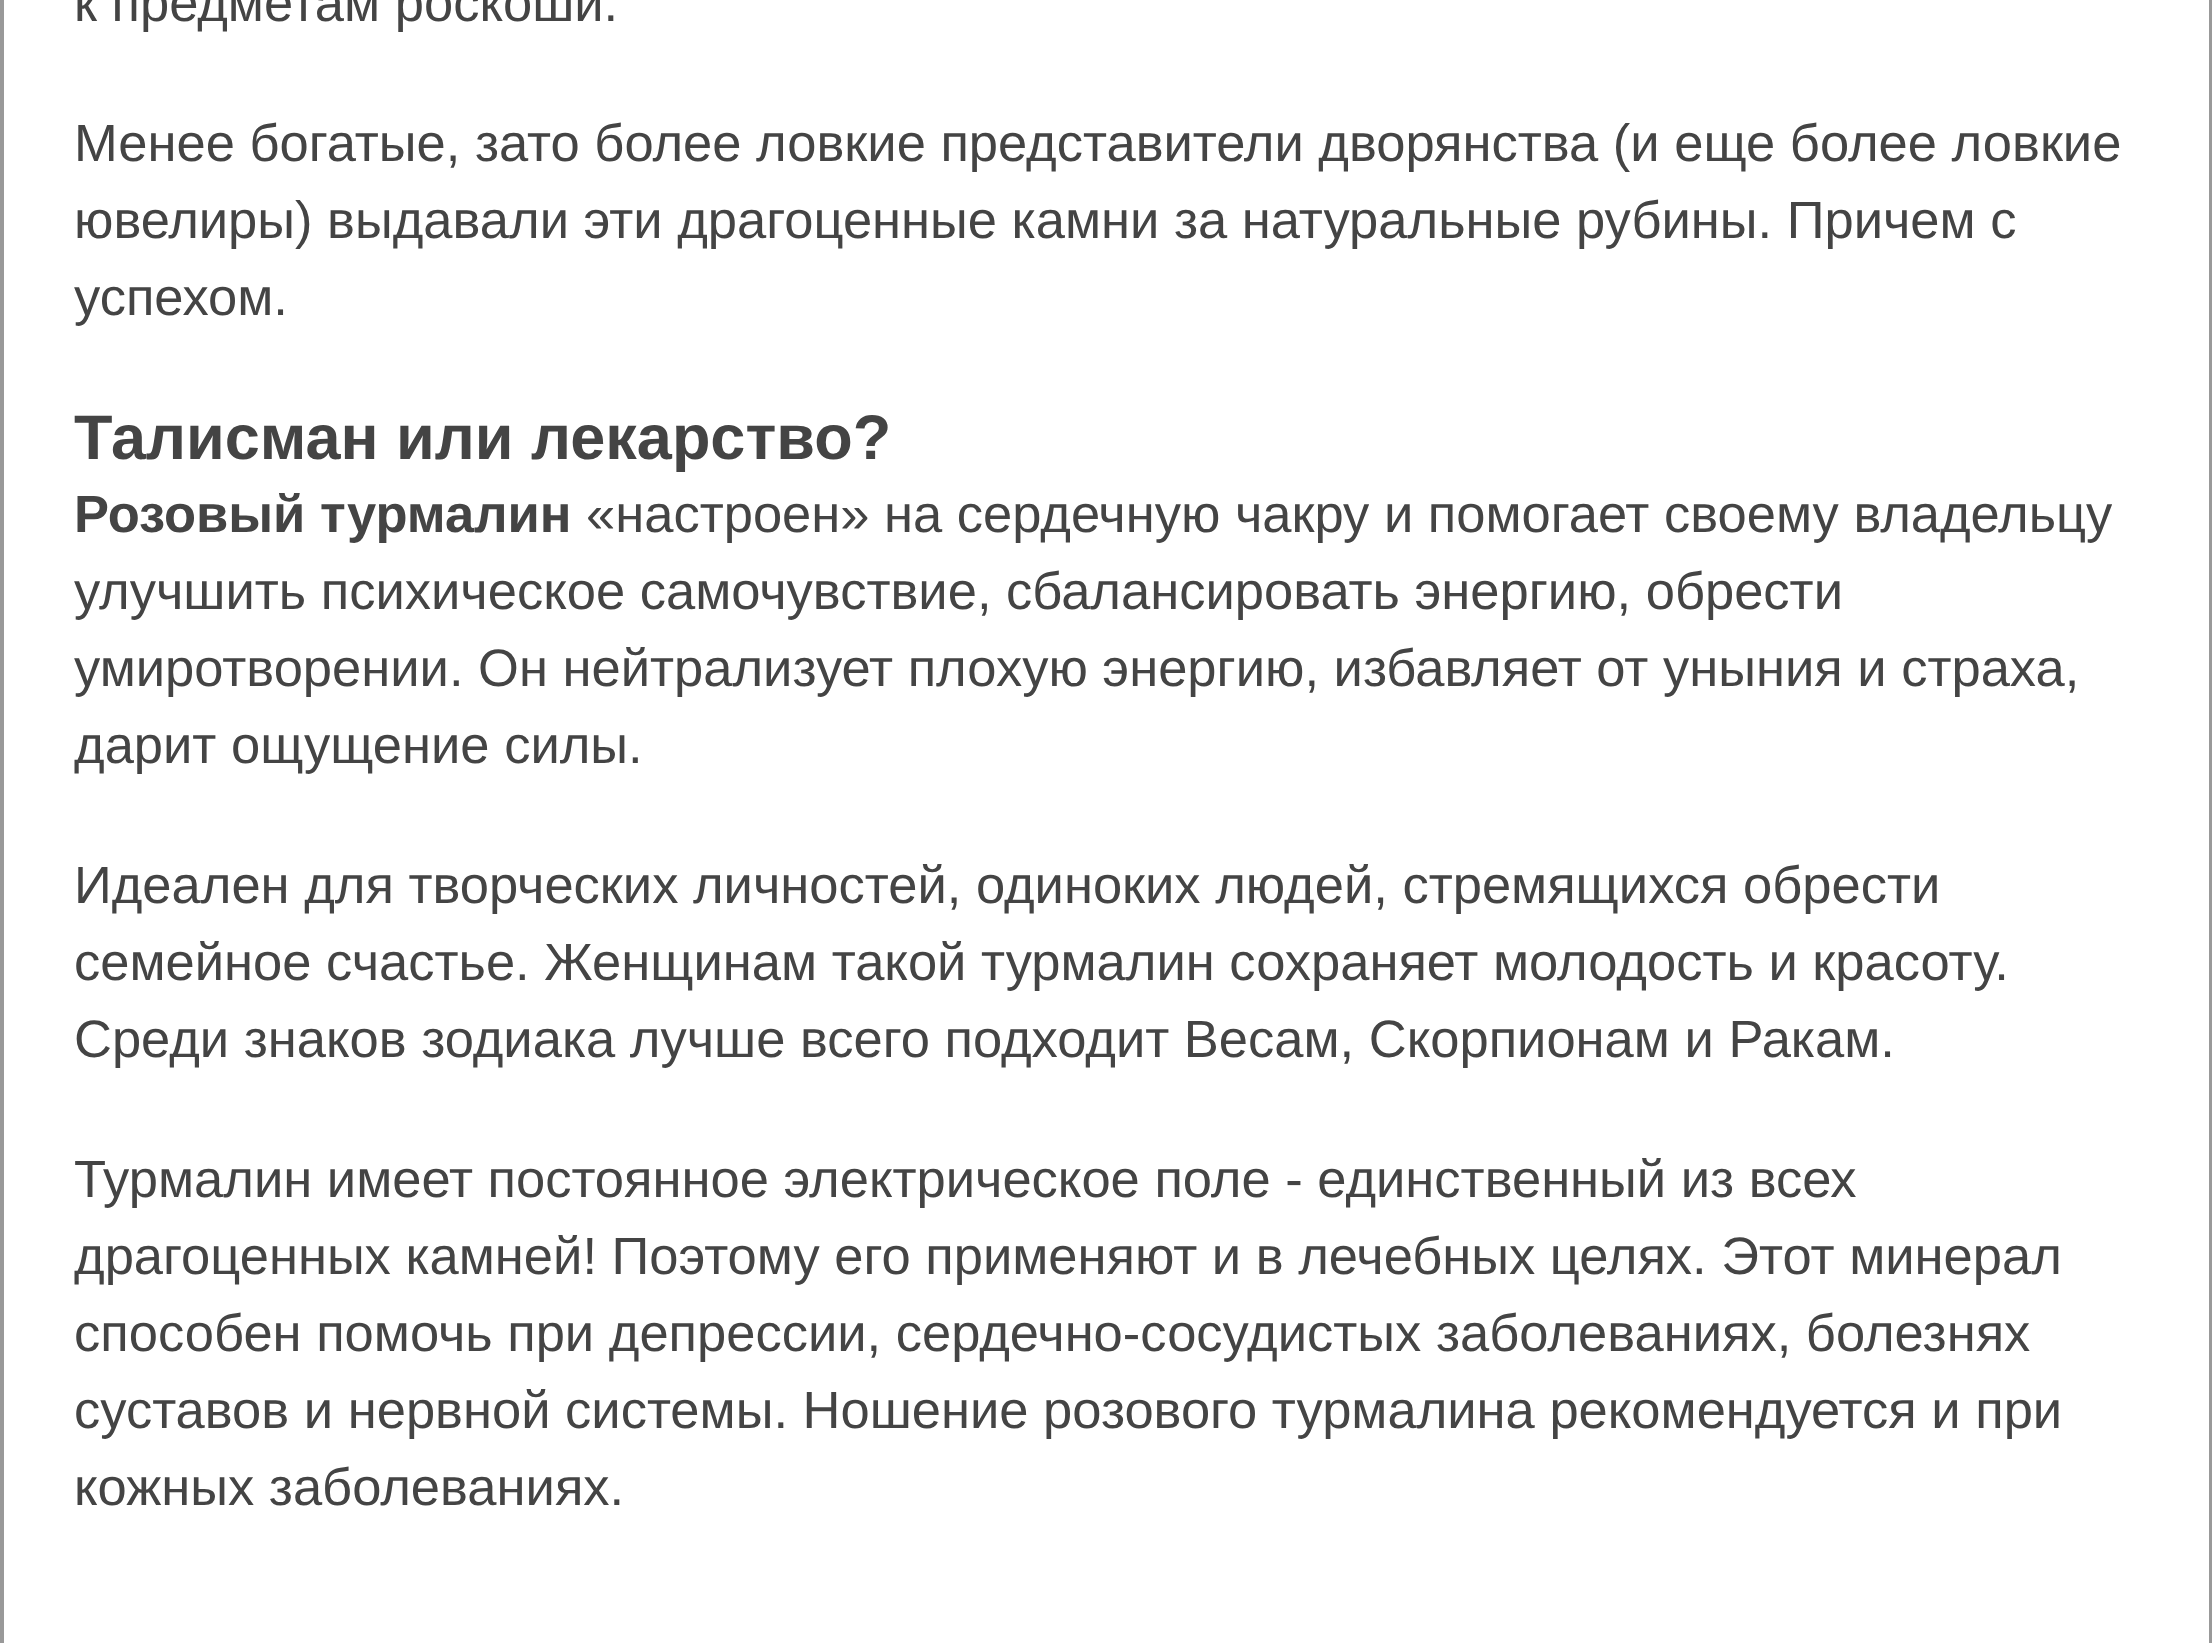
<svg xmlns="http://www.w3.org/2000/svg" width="2212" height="1643">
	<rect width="100%" height="100%" fill="#FFFFFF" />
	<rect x="2" y="-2" width="2208" height="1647" fill="none" stroke="#999999" stroke-width="4" />
	<rect x="2208" y="0" width="1" height="1643" fill="#FFFFFF" />
	<g font-family="Liberation Sans" font-size="52.5" fill="#444444">
		<text x="74" y="21">к предметам роскоши.</text>
		<text x="74" y="161">Менее богатые, зато более ловкие представители дворянства (и еще более ловкие</text>
		<text x="74" y="238">ювелиры) выдавали эти драгоценные камни за натуральные рубины. Причем с</text>
		<text x="74" y="315">успехом.</text>
	</g>
	<text x="74" y="459" font-family="Liberation Sans" font-size="63" font-weight="700" fill="#444444">Талисман или лекарство?</text>
	<text x="74" y="532" font-family="Liberation Sans" font-size="52.5" font-weight="700" fill="#444444">Розовый турмалин</text>
	<g font-family="Liberation Sans" font-size="52.5" fill="#444444">
		<text x="586" y="532">«настроен» на сердечную чакру и помогает своему владельцу</text>
		<text x="74" y="609">улучшить психическое самочувствие, сбалансировать энергию, обрести</text>
		<text x="74" y="686">умиротворении. Он нейтрализует плохую энергию, избавляет от уныния и страха,</text>
		<text x="74" y="763">дарит ощущение силы.</text>
		<text x="74" y="903">Идеален для творческих личностей, одиноких людей, стремящихся обрести</text>
		<text x="74" y="980">семейное счастье. Женщинам такой турмалин сохраняет молодость и красоту.</text>
		<text x="74" y="1057">Среди знаков зодиака лучше всего подходит Весам, Скорпионам и Ракам.</text>
		<text x="74" y="1197">Турмалин имеет постоянное электрическое поле - единственный из всех</text>
		<text x="74" y="1274">драгоценных камней! Поэтому его применяют и в лечебных целях. Этот минерал</text>
		<text x="74" y="1351">способен помочь при депрессии, сердечно-сосудистых заболеваниях, болезнях</text>
		<text x="74" y="1428">суставов и нервной системы. Ношение розового турмалина рекомендуется и при</text>
		<text x="74" y="1505">кожных заболеваниях.</text>
	</g>
</svg>
